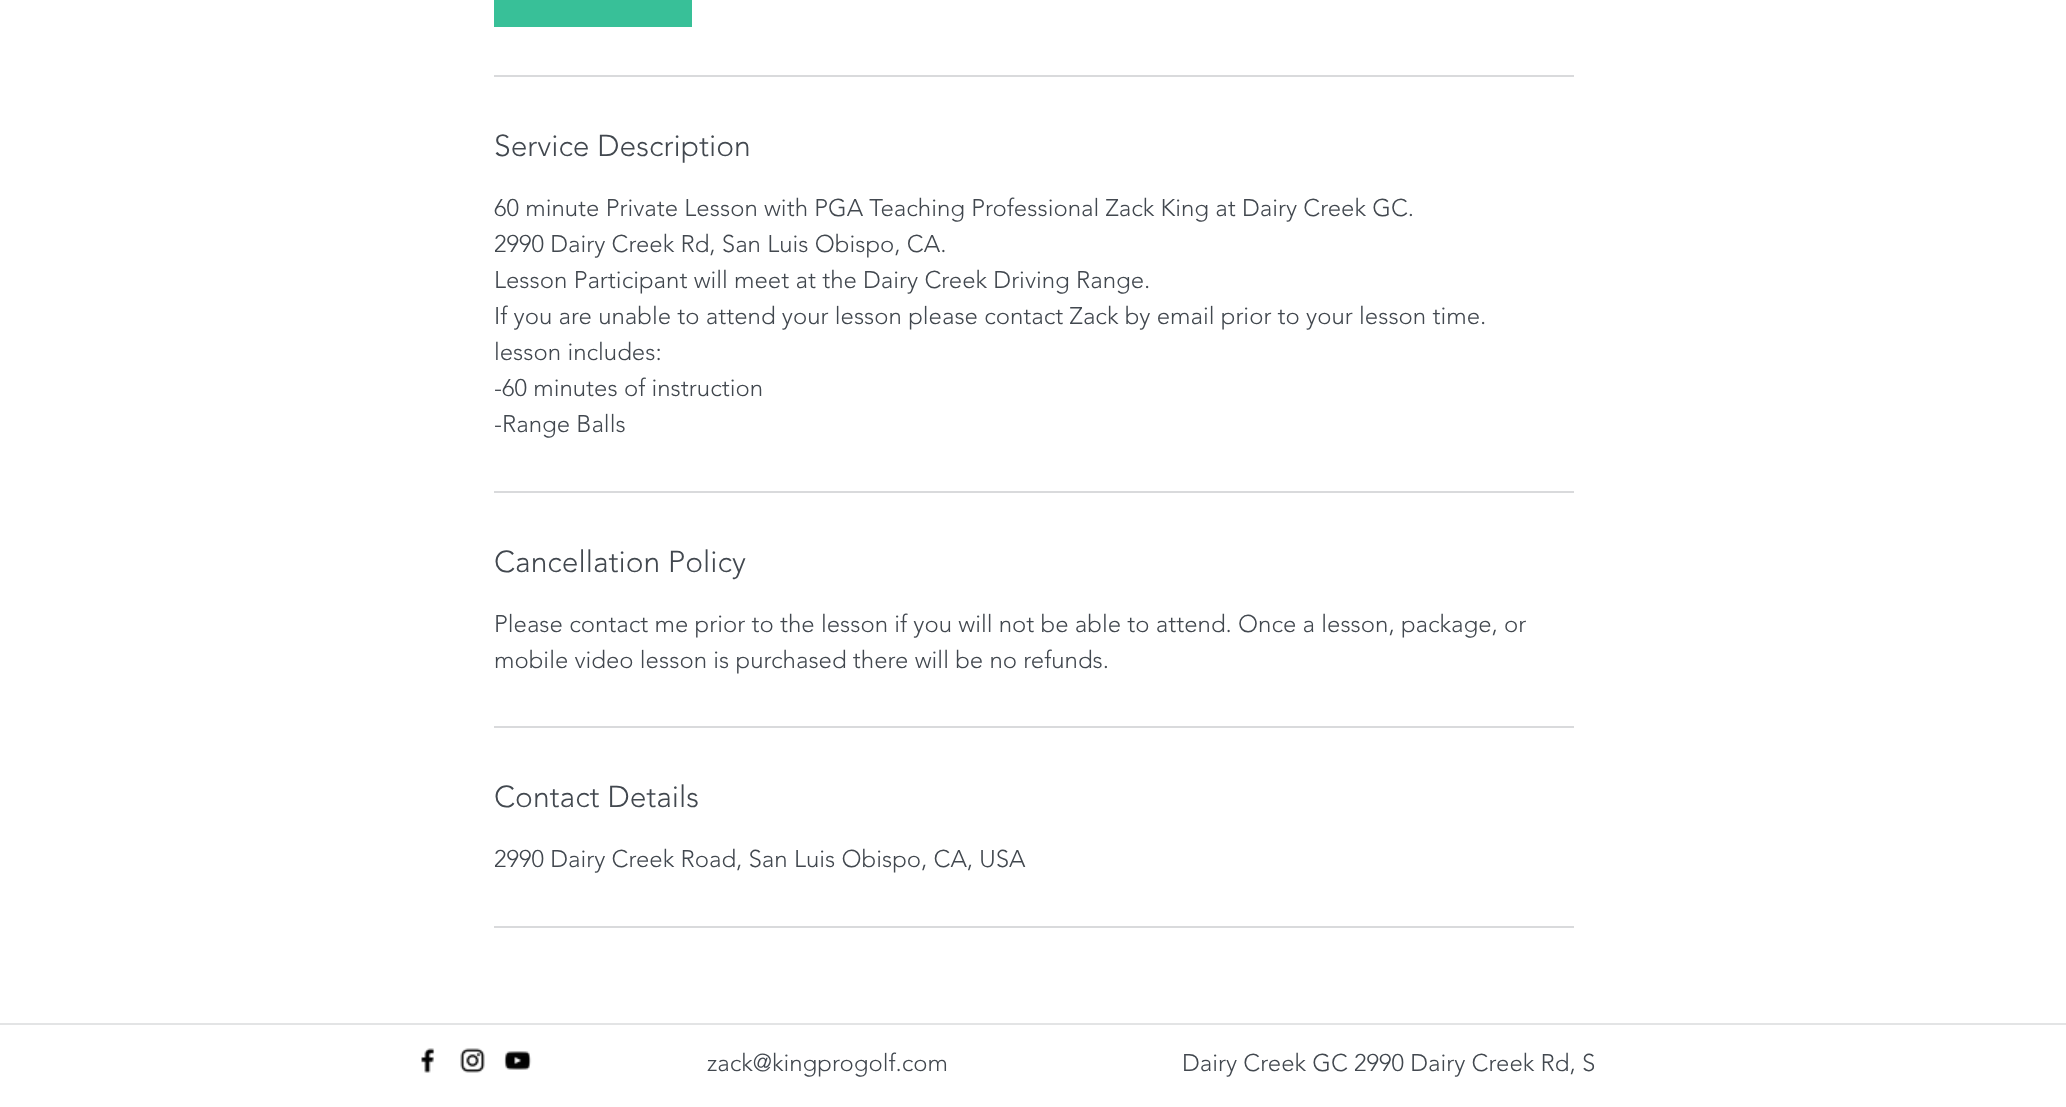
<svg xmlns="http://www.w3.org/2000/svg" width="2066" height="1107">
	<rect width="100%" height="100%" fill="#FFFFFF" />
	<rect x="494" y="0" width="198" height="27" fill="#38C098" />
	<rect x="494" y="75" width="1080" height="2" fill="#D9DADC" />
	<text x="494" y="156" font-family="'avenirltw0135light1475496'" font-size="30" font-weight="300" fill="#42484F">Service Description</text>
	<g font-family="'avenirltw0135light1475496'" font-size="24" font-weight="300" fill="#42484F">
		<text x="494" y="216">60 minute Private Lesson with PGA Teaching Professional Zack King at Dairy Creek GC.</text>
		<text x="494" y="252">2990 Dairy Creek Rd, San Luis Obispo, CA.</text>
		<text x="494" y="288">Lesson Participant will meet at the Dairy Creek Driving Range.</text>
		<text x="494" y="324">If you are unable to attend your lesson please contact Zack by email prior to your lesson time.</text>
		<text x="494" y="360">lesson includes:</text>
		<text x="494" y="396">-60 minutes of instruction</text>
		<text x="494" y="432">-Range Balls</text>
	</g>
	<rect x="494" y="491" width="1080" height="2" fill="#D9DADC" />
	<text x="494" y="572" font-family="'avenirltw0135light1475496'" font-size="30" font-weight="300" fill="#42484F">Cancellation Policy</text>
	<g font-family="'avenirltw0135light1475496'" font-size="24" font-weight="300" fill="#42484F">
		<text x="494" y="632">Please contact me prior to the lesson if you will not be able to attend. Once a lesson, package, or</text>
		<text x="494" y="668">mobile video lesson is purchased there will be no refunds.</text>
	</g>
	<rect x="494" y="726" width="1080" height="2" fill="#D9DADC" />
	<text x="494" y="807" font-family="'avenirltw0135light1475496'" font-size="30" font-weight="300" fill="#42484F">Contact Details</text>
	<text x="494" y="867" font-family="'avenirltw0135light1475496'" font-size="24" font-weight="300" fill="#42484F">2990 Dairy Creek Road, San Luis Obispo, CA, USA</text>
	<rect x="494" y="926" width="1080" height="2" fill="#D9DADC" />
	<rect x="0" y="1023" width="2066" height="2" fill="#E3E4E5" />
	<image x="421" y="1048" width="14" height="25" href="assets/img1.png" />
	<image x="460" y="1048" width="25" height="25" href="assets/img2.png" />
	<image x="504" y="1051" width="28" height="19" href="assets/img3.png" />
	<g font-family="'avenirltw0135light1475496'" font-size="24" font-weight="300" fill="#42484F">
		<text x="707" y="1071">zack@kingprogolf.com</text>
		<text x="1182" y="1071">Dairy Creek GC 2990 Dairy Creek Rd, S</text>
	</g>
</svg>
